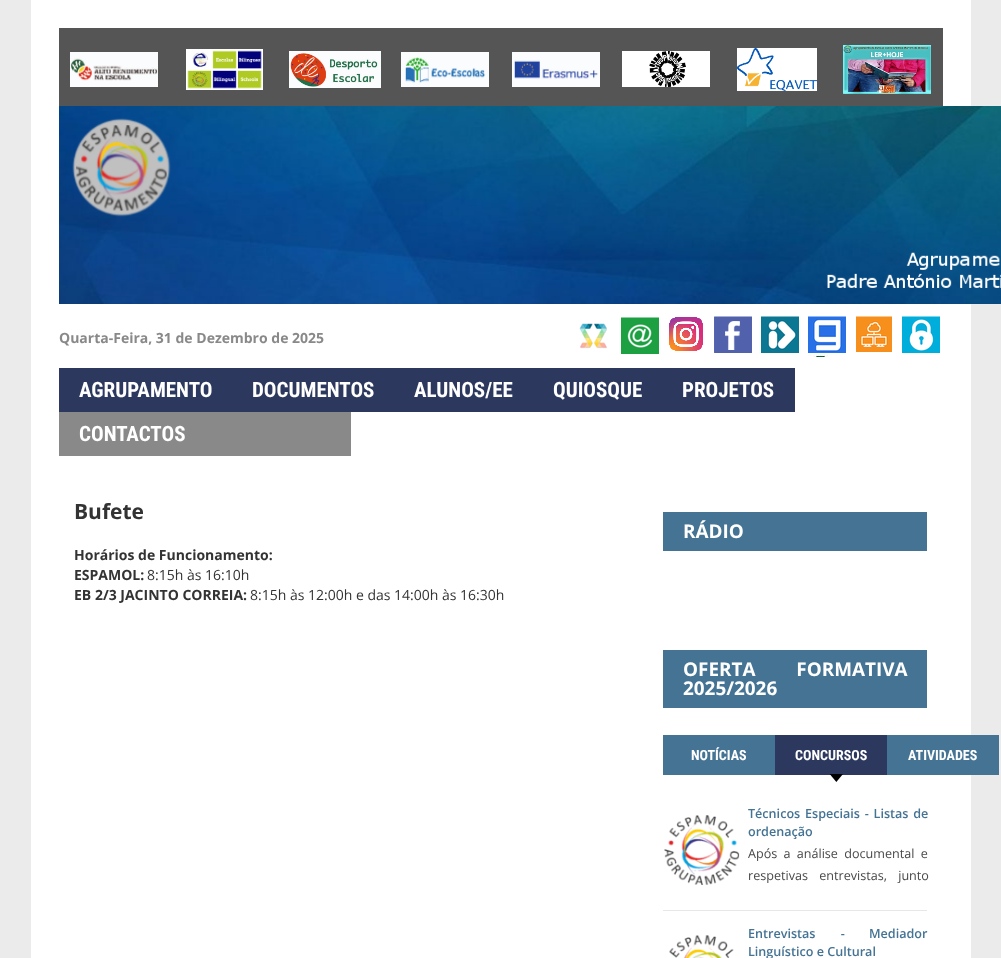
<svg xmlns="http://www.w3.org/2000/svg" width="1001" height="958">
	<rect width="100%" height="100%" fill="#EBEBEB" />
	<rect x="31" y="0" width="940" height="958" fill="#FFFFFF" />
	<rect x="59" y="28" width="884" height="78" fill="#555555" />
	<image x="70" y="52" width="88" height="35" href="assets/img1.png" />
	<image x="186" y="49" width="77" height="41" href="assets/img2.png" />
	<image x="289" y="51" width="92" height="37" href="assets/img3.png" />
	<image x="401" y="52" width="88" height="35" href="assets/img4.png" />
	<image x="512" y="52" width="88" height="35" href="assets/img5.png" />
	<image x="622" y="51" width="88" height="36" href="assets/img6.png" />
	<image x="737" y="48" width="80" height="43" href="assets/img7.png" />
	<image x="843" y="45" width="88" height="49" href="assets/img8.png" />
	<image x="59" y="106" width="942" height="198" href="assets/img9.png" />
	<image x="579" y="323" width="28" height="26" href="assets/img10.png" />
	<image x="621" y="317" width="38" height="37" href="assets/img11.png" />
	<image x="669" y="317" width="34" height="34" href="assets/img12.png" />
	<image x="714" y="316" width="38" height="37" href="assets/img13.png" />
	<image x="761" y="316" width="38" height="37" href="assets/img14.png" />
	<image x="808" y="316" width="38" height="41" href="assets/img15.png" />
	<image x="856" y="316" width="36" height="36" href="assets/img16.png" />
	<image x="902" y="316" width="38" height="37" href="assets/img17.png" />
	<text x="59" y="343" font-family="Open Sans" font-size="14" font-weight="700" fill="#898989">Quarta-Feira, 31 de Dezembro de 2025</text>
	<rect x="59" y="368" width="736" height="44" fill="#2D385E" />
	<g font-family="Roboto Condensed" font-size="21" font-weight="700" fill="#FFFFFF">
		<text x="79" y="397">AGRUPAMENTO</text>
		<text x="252" y="397">DOCUMENTOS</text>
		<text x="414" y="397">ALUNOS/EE</text>
		<text x="553" y="397">QUIOSQUE</text>
		<text x="682" y="397">PROJETOS</text>
	</g>
	<rect x="59" y="412" width="292" height="44" fill="#898989" />
	<text x="79" y="441" font-family="Roboto Condensed" font-size="21" font-weight="700" fill="#FFFFFF">CONTACTOS</text>
	<text x="74" y="519" font-family="Open Sans" font-size="21" font-weight="700" fill="#333333">Bufete</text>
	<g font-family="Open Sans" font-size="14" font-weight="700" fill="#333333">
		<text x="74" y="560">Horários de Funcionamento:</text>
		<text x="74" y="580">ESPAMOL:</text>
	</g>
	<text x="147" y="580" font-family="Open Sans" font-size="14" fill="#333333">8:15h às 16:10h</text>
	<text x="74" y="600" font-family="Open Sans" font-size="14" font-weight="700" fill="#333333">EB 2/3 JACINTO CORREIA:</text>
	<text x="250" y="600" font-family="Open Sans" font-size="14" fill="#333333">8:15h às 12:00h e das 14:00h às 16:30h</text>
	<rect x="663" y="512" width="264" height="39" fill="#447394" />
	<text x="683" y="538" font-family="Open Sans" font-size="18.9" font-weight="700" fill="#FFFFFF">RÁDIO</text>
	<rect x="663" y="650" width="264" height="58" fill="#447394" />
	<g font-family="Open Sans" font-size="18.9" font-weight="700" fill="#FFFFFF">
		<text x="683" y="676" word-spacing="36">OFERTA FORMATIVA</text>
		<text x="683" y="695">2025/2026</text>
	</g>
	<rect x="663" y="735" width="112" height="40" fill="#447394" />
	<text x="691" y="760" font-family="Roboto Condensed" font-size="14" font-weight="700" fill="#FFFFFF">NOTÍCIAS</text>
	<rect x="775" y="735" width="112" height="40" fill="#2D385E" />
	<text x="795" y="760" font-family="Roboto Condensed" font-size="14" font-weight="700" fill="#FFFFFF">CONCURSOS</text>
	<image x="829" y="774" width="14" height="8" href="assets/img18.png" />
	<rect x="887" y="735" width="112" height="40" fill="#447394" />
	<text x="908" y="760" font-family="Roboto Condensed" font-size="14" font-weight="700" fill="#FFFFFF">ATIVIDADES</text>
	<rect x="663" y="910" width="264" height="1" fill="#E8E6E6" />
	<image x="664" y="815" width="76" height="70" href="assets/img19.png" />
	<g font-family="Open Sans" font-size="12.6" font-weight="600" fill="#447394">
		<text x="748" y="818" word-spacing="1.5">Técnicos Especiais - Listas de</text>
		<text x="748" y="836">ordenação</text>
	</g>
	<g font-family="Open Sans" font-size="12.6" fill="#494949">
		<text x="748" y="858" word-spacing="3">Após a análise documental e</text>
		<text x="748" y="880" word-spacing="8">respetivas entrevistas, junto</text>
	</g>
	<image x="669" y="935" width="65" height="23" href="assets/img20.png" />
	<g font-family="Open Sans" font-size="12.6" font-weight="600" fill="#447394">
		<text x="748" y="938" word-spacing="22">Entrevistas -</text>
		<text x="869" y="938">Mediador</text>
		<text x="748" y="956">Linguístico e Cultural</text>
	</g>
</svg>
